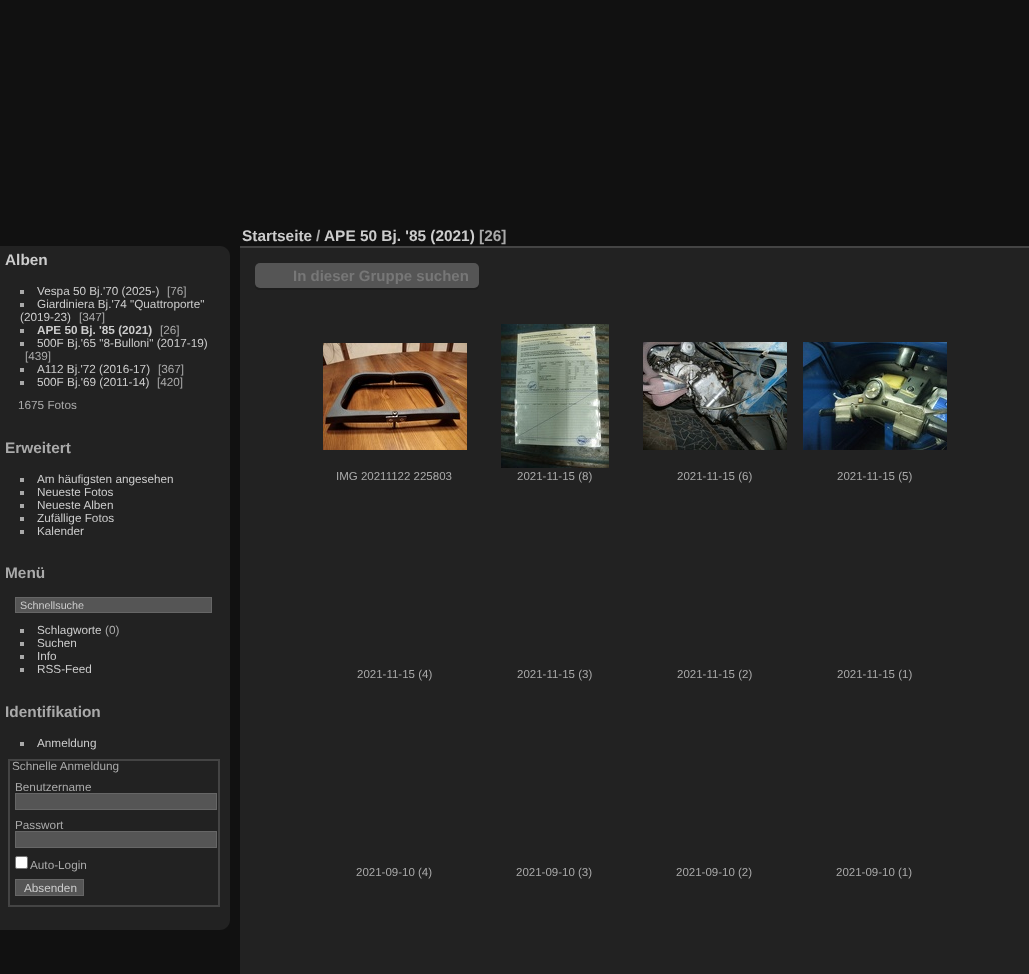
<svg xmlns="http://www.w3.org/2000/svg" width="1029" height="974">
	<rect width="100%" height="100%" fill="#111111" />
	<path d="M0 246H220C225.5 246 230 250.5 230 256V920C230 925.5 225.5 930 220 930H0Z" fill="#222222" />
	<text x="5" y="265" font-family="Liberation Sans" font-size="15.4" font-weight="700" fill="#CCCCCC">Alben</text>
	<rect x="20" y="290" width="4" height="4" fill="#AAAAAA" />
	<text x="37" y="295" font-family="Liberation Sans" font-size="11.75" fill="#CCCCCC">Vespa 50 Bj.'70 (2025-)</text>
	<text x="167" y="295" font-family="Liberation Sans" font-size="11.75" fill="#AAAAAA">[76]</text>
	<rect x="20" y="303" width="4" height="4" fill="#AAAAAA" />
	<g font-family="Liberation Sans" font-size="11.75" fill="#CCCCCC">
		<text x="37" y="308">Giardiniera Bj.'74 "Quattroporte"</text>
		<text x="20" y="321">(2019-23)</text>
	</g>
	<text x="79" y="321" font-family="Liberation Sans" font-size="11.75" fill="#AAAAAA">[347]</text>
	<rect x="20" y="329" width="4" height="4" fill="#AAAAAA" />
	<text x="37" y="334" font-family="Liberation Sans" font-size="11.75" font-weight="700" fill="#CCCCCC">APE 50 Bj. '85 (2021)</text>
	<text x="160" y="334" font-family="Liberation Sans" font-size="11.75" fill="#AAAAAA">[26]</text>
	<rect x="20" y="342" width="4" height="4" fill="#AAAAAA" />
	<text x="37" y="347" font-family="Liberation Sans" font-size="11.75" fill="#CCCCCC">500F Bj.'65 "8-Bulloni" (2017-19)</text>
	<text x="25" y="360" font-family="Liberation Sans" font-size="11.75" fill="#AAAAAA">[439]</text>
	<rect x="20" y="368" width="4" height="4" fill="#AAAAAA" />
	<text x="37" y="373" font-family="Liberation Sans" font-size="11.75" fill="#CCCCCC">A112 Bj.'72 (2016-17)</text>
	<text x="158" y="373" font-family="Liberation Sans" font-size="11.75" fill="#AAAAAA">[367]</text>
	<rect x="20" y="381" width="4" height="4" fill="#AAAAAA" />
	<text x="37" y="386" font-family="Liberation Sans" font-size="11.75" fill="#CCCCCC">500F Bj.'69 (2011-14)</text>
	<g font-family="Liberation Sans" font-size="11.75" fill="#AAAAAA">
		<text x="157" y="386">[420]</text>
		<text x="18" y="409">1675 Fotos</text>
	</g>
	<text x="5" y="453" font-family="Liberation Sans" font-size="15.4" font-weight="700" fill="#AAAAAA">Erweitert</text>
	<rect x="20" y="478" width="4" height="4" fill="#AAAAAA" />
	<text x="37" y="483" font-family="Liberation Sans" font-size="11.75" fill="#CCCCCC">Am häufigsten angesehen</text>
	<rect x="20" y="491" width="4" height="4" fill="#AAAAAA" />
	<text x="37" y="496" font-family="Liberation Sans" font-size="11.75" fill="#CCCCCC">Neueste Fotos</text>
	<rect x="20" y="504" width="4" height="4" fill="#AAAAAA" />
	<text x="37" y="509" font-family="Liberation Sans" font-size="11.75" fill="#CCCCCC">Neueste Alben</text>
	<rect x="20" y="517" width="4" height="4" fill="#AAAAAA" />
	<text x="37" y="522" font-family="Liberation Sans" font-size="11.75" fill="#CCCCCC">Zufällige Fotos</text>
	<rect x="20" y="530" width="4" height="4" fill="#AAAAAA" />
	<text x="37" y="535" font-family="Liberation Sans" font-size="11.75" fill="#CCCCCC">Kalender</text>
	<text x="5" y="578" font-family="Liberation Sans" font-size="15.4" font-weight="700" fill="#AAAAAA">Menü</text>
	<rect x="15.5" y="597.5" width="196" height="15" fill="#555555" stroke="#666666" />
	<text x="20" y="609" font-family="Liberation Sans" font-size="10.75" fill="#CCCCCC">Schnellsuche</text>
	<rect x="20" y="629" width="4" height="4" fill="#AAAAAA" />
	<text x="37" y="634" font-family="Liberation Sans" font-size="11.75" fill="#CCCCCC">Schlagworte</text>
	<text x="105" y="634" font-family="Liberation Sans" font-size="11.75" fill="#AAAAAA">(0)</text>
	<rect x="20" y="642" width="4" height="4" fill="#AAAAAA" />
	<text x="37" y="647" font-family="Liberation Sans" font-size="11.75" fill="#CCCCCC">Suchen</text>
	<rect x="20" y="655" width="4" height="4" fill="#AAAAAA" />
	<text x="37" y="660" font-family="Liberation Sans" font-size="11.75" fill="#CCCCCC">Info</text>
	<rect x="20" y="668" width="4" height="4" fill="#AAAAAA" />
	<text x="37" y="673" font-family="Liberation Sans" font-size="11.75" fill="#CCCCCC">RSS-Feed</text>
	<text x="5" y="717" font-family="Liberation Sans" font-size="15.4" font-weight="700" fill="#AAAAAA">Identifikation</text>
	<rect x="20" y="742" width="4" height="4" fill="#AAAAAA" />
	<text x="37" y="747" font-family="Liberation Sans" font-size="11.75" fill="#CCCCCC">Anmeldung</text>
	<rect x="9" y="760" width="210" height="146" fill="none" stroke="#444444" stroke-width="2" />
	<g font-family="Liberation Sans" font-size="11.75" fill="#AAAAAA">
		<text x="12" y="770">Schnelle Anmeldung</text>
		<text x="15" y="791">Benutzername</text>
	</g>
	<rect x="15.5" y="793.5" width="201" height="16" fill="#555555" stroke="#666666" />
	<text x="15" y="829" font-family="Liberation Sans" font-size="11.75" fill="#AAAAAA">Passwort</text>
	<rect x="15.5" y="831.5" width="201" height="16" fill="#555555" stroke="#666666" />
	<rect x="15.5" y="856.5" width="12" height="12" rx="1.5" fill="#FFFFFF" stroke="#767676" />
	<text x="30" y="869" font-family="Liberation Sans" font-size="11.75" fill="#AAAAAA">Auto-Login</text>
	<rect x="15.5" y="879.5" width="68" height="16" fill="#555555" stroke="#666666" />
	<text x="24" y="892" font-family="Liberation Sans" font-size="11.75" fill="#CCCCCC">Absenden</text>
	<rect x="240" y="248" width="789" height="726" fill="#222222" />
	<rect x="240" y="246" width="789" height="2" fill="#444444" />
	<text x="242" y="241" font-family="Liberation Sans" font-size="15.4" font-weight="700" fill="#CCCCCC">Startseite</text>
	<text x="316" y="241" font-family="Liberation Sans" font-size="15.4" font-weight="700" fill="#AAAAAA">/</text>
	<text x="324" y="241" font-family="Liberation Sans" font-size="15.4" font-weight="700" fill="#CCCCCC">APE 50 Bj. '85 (2021)</text>
	<text x="479" y="241" font-family="Liberation Sans" font-size="15.4" font-weight="700" fill="#AAAAAA">[26]</text>
	<path d="M255 283V285C255 288 257 290 260 290H474C477 290 479 288 479 285V283C479 286 477 288 474 288H260C257 288 255 286 255 283Z" fill="#1D1D1D" />
	<rect x="255" y="263" width="224" height="25" rx="5" fill="#555555" />
	<text x="293" y="281" font-family="Liberation Sans" font-size="15" font-weight="700" fill="#777777">In dieser Gruppe suchen</text>
	<image x="323" y="343" width="144" height="107" href="assets/img1.png" />
	<text x="336" y="480" font-family="Liberation Sans" font-size="11.5" fill="#AAAAAA">IMG 20211122 225803</text>
	<image x="501" y="324" width="108" height="144" href="assets/img2.png" />
	<text x="517" y="480" font-family="Liberation Sans" font-size="11.5" fill="#AAAAAA">2021-11-15 (8)</text>
	<image x="643" y="342" width="144" height="108" href="assets/img3.png" />
	<text x="677" y="480" font-family="Liberation Sans" font-size="11.5" fill="#AAAAAA">2021-11-15 (6)</text>
	<image x="803" y="342" width="144" height="108" href="assets/img4.png" />
	<g font-family="Liberation Sans" font-size="11.5" fill="#AAAAAA">
		<text x="837" y="480">2021-11-15 (5)</text>
		<text x="357" y="678">2021-11-15 (4)</text>
		<text x="517" y="678">2021-11-15 (3)</text>
		<text x="677" y="678">2021-11-15 (2)</text>
		<text x="837" y="678">2021-11-15 (1)</text>
		<text x="356" y="876">2021-09-10 (4)</text>
		<text x="516" y="876">2021-09-10 (3)</text>
		<text x="676" y="876">2021-09-10 (2)</text>
		<text x="836" y="876">2021-09-10 (1)</text>
	</g>
</svg>
